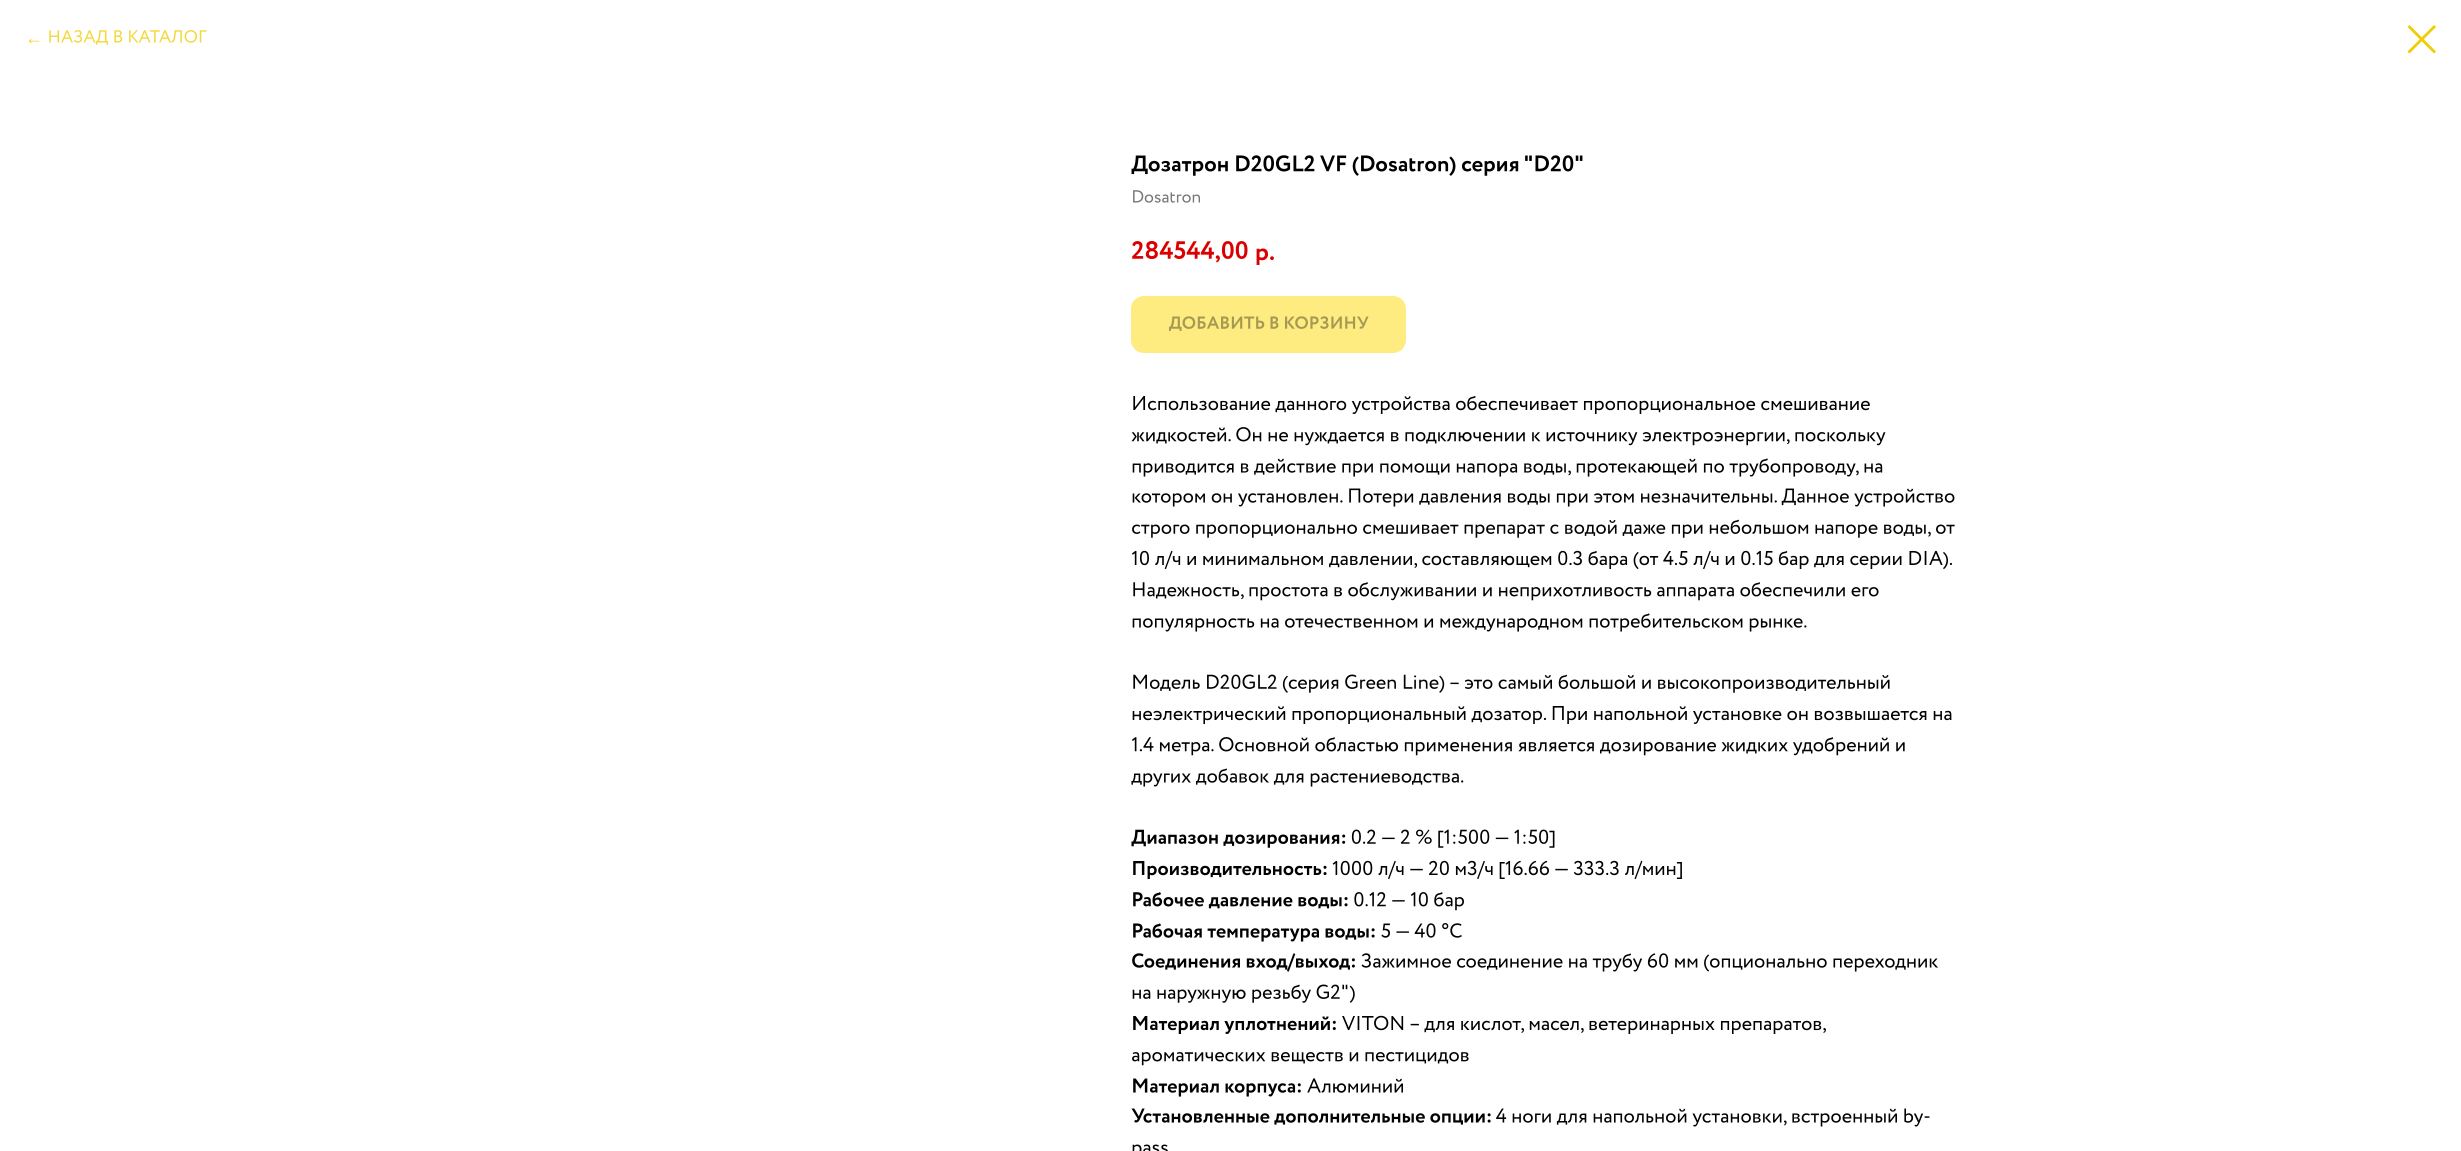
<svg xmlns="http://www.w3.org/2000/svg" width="2461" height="1151">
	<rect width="100%" height="100%" fill="#FFFFFF" />
	<text x="25" y="44" font-family="Liberation Sans" font-size="18" fill="#F3D737">←</text>
	<image x="49" y="30" width="158" height="15" href="assets/img1.png" />
	<path d="M2407.5 27L2409.5 25L2436 51.5L2434 53.5Z" fill="#F0CD05" fill-rule="evenodd" />
	<path d="M2434 25L2436 27L2409.5 53.5L2407.5 51.5Z" fill="#F0CD05" fill-rule="evenodd" />
	<image x="1131" y="155" width="452" height="21" href="assets/img2.png" />
	<image x="1133" y="190" width="67" height="13" href="assets/img3.png" />
	<image x="1132" y="241" width="116" height="22" href="assets/img4.png" />
	<image x="1256" y="248" width="18" height="17" href="assets/img5.png" />
	<rect x="1131" y="296" width="275" height="57" rx="13" fill="#FEEC80" />
	<image x="1169" y="316" width="200" height="15" href="assets/img6.png" />
	<image x="1133" y="395" width="737" height="19" href="assets/img7.png" />
	<image x="1131" y="427" width="755" height="19" href="assets/img8.png" />
	<image x="1132" y="458" width="751" height="19" href="assets/img9.png" />
	<image x="1132" y="488" width="823" height="19" href="assets/img10.png" />
	<image x="1132" y="519" width="823" height="19" href="assets/img11.png" />
	<image x="1132" y="550" width="820" height="20" href="assets/img12.png" />
	<image x="1133" y="582" width="746" height="19" href="assets/img13.png" />
	<image x="1132" y="613" width="675" height="19" href="assets/img14.png" />
	<image x="1133" y="674" width="757" height="19" href="assets/img15.png" />
	<image x="1132" y="706" width="820" height="18" href="assets/img16.png" />
	<image x="1132" y="737" width="773" height="19" href="assets/img17.png" />
	<image x="1131" y="768" width="333" height="19" href="assets/img18.png" />
	<image x="1131" y="829" width="215" height="19" href="assets/img19.png" />
	<image x="1351" y="829" width="204" height="19" href="assets/img20.png" />
	<image x="1133" y="861" width="194" height="18" href="assets/img21.png" />
	<image x="1332" y="860" width="350" height="20" href="assets/img22.png" />
	<image x="1133" y="892" width="215" height="17" href="assets/img23.png" />
	<image x="1354" y="892" width="110" height="19" href="assets/img24.png" />
	<image x="1133" y="923" width="242" height="19" href="assets/img25.png" />
	<image x="1381" y="923" width="81" height="15" href="assets/img26.png" />
	<image x="1132" y="953" width="223" height="19" href="assets/img27.png" />
	<image x="1361" y="953" width="577" height="19" href="assets/img28.png" />
	<image x="1132" y="984" width="223" height="19" href="assets/img29.png" />
	<image x="1133" y="1016" width="203" height="18" href="assets/img30.png" />
	<image x="1342" y="1015" width="484" height="19" href="assets/img31.png" />
	<image x="1132" y="1052" width="337" height="14" href="assets/img32.png" />
	<image x="1133" y="1078" width="168" height="19" href="assets/img33.png" />
	<image x="1307" y="1078" width="96" height="15" href="assets/img34.png" />
	<image x="1131" y="1108" width="360" height="17" href="assets/img35.png" />
	<image x="1496" y="1108" width="434" height="19" href="assets/img36.png" />
	<image x="1132" y="1144" width="36" height="7" href="assets/img37.png" />
</svg>
